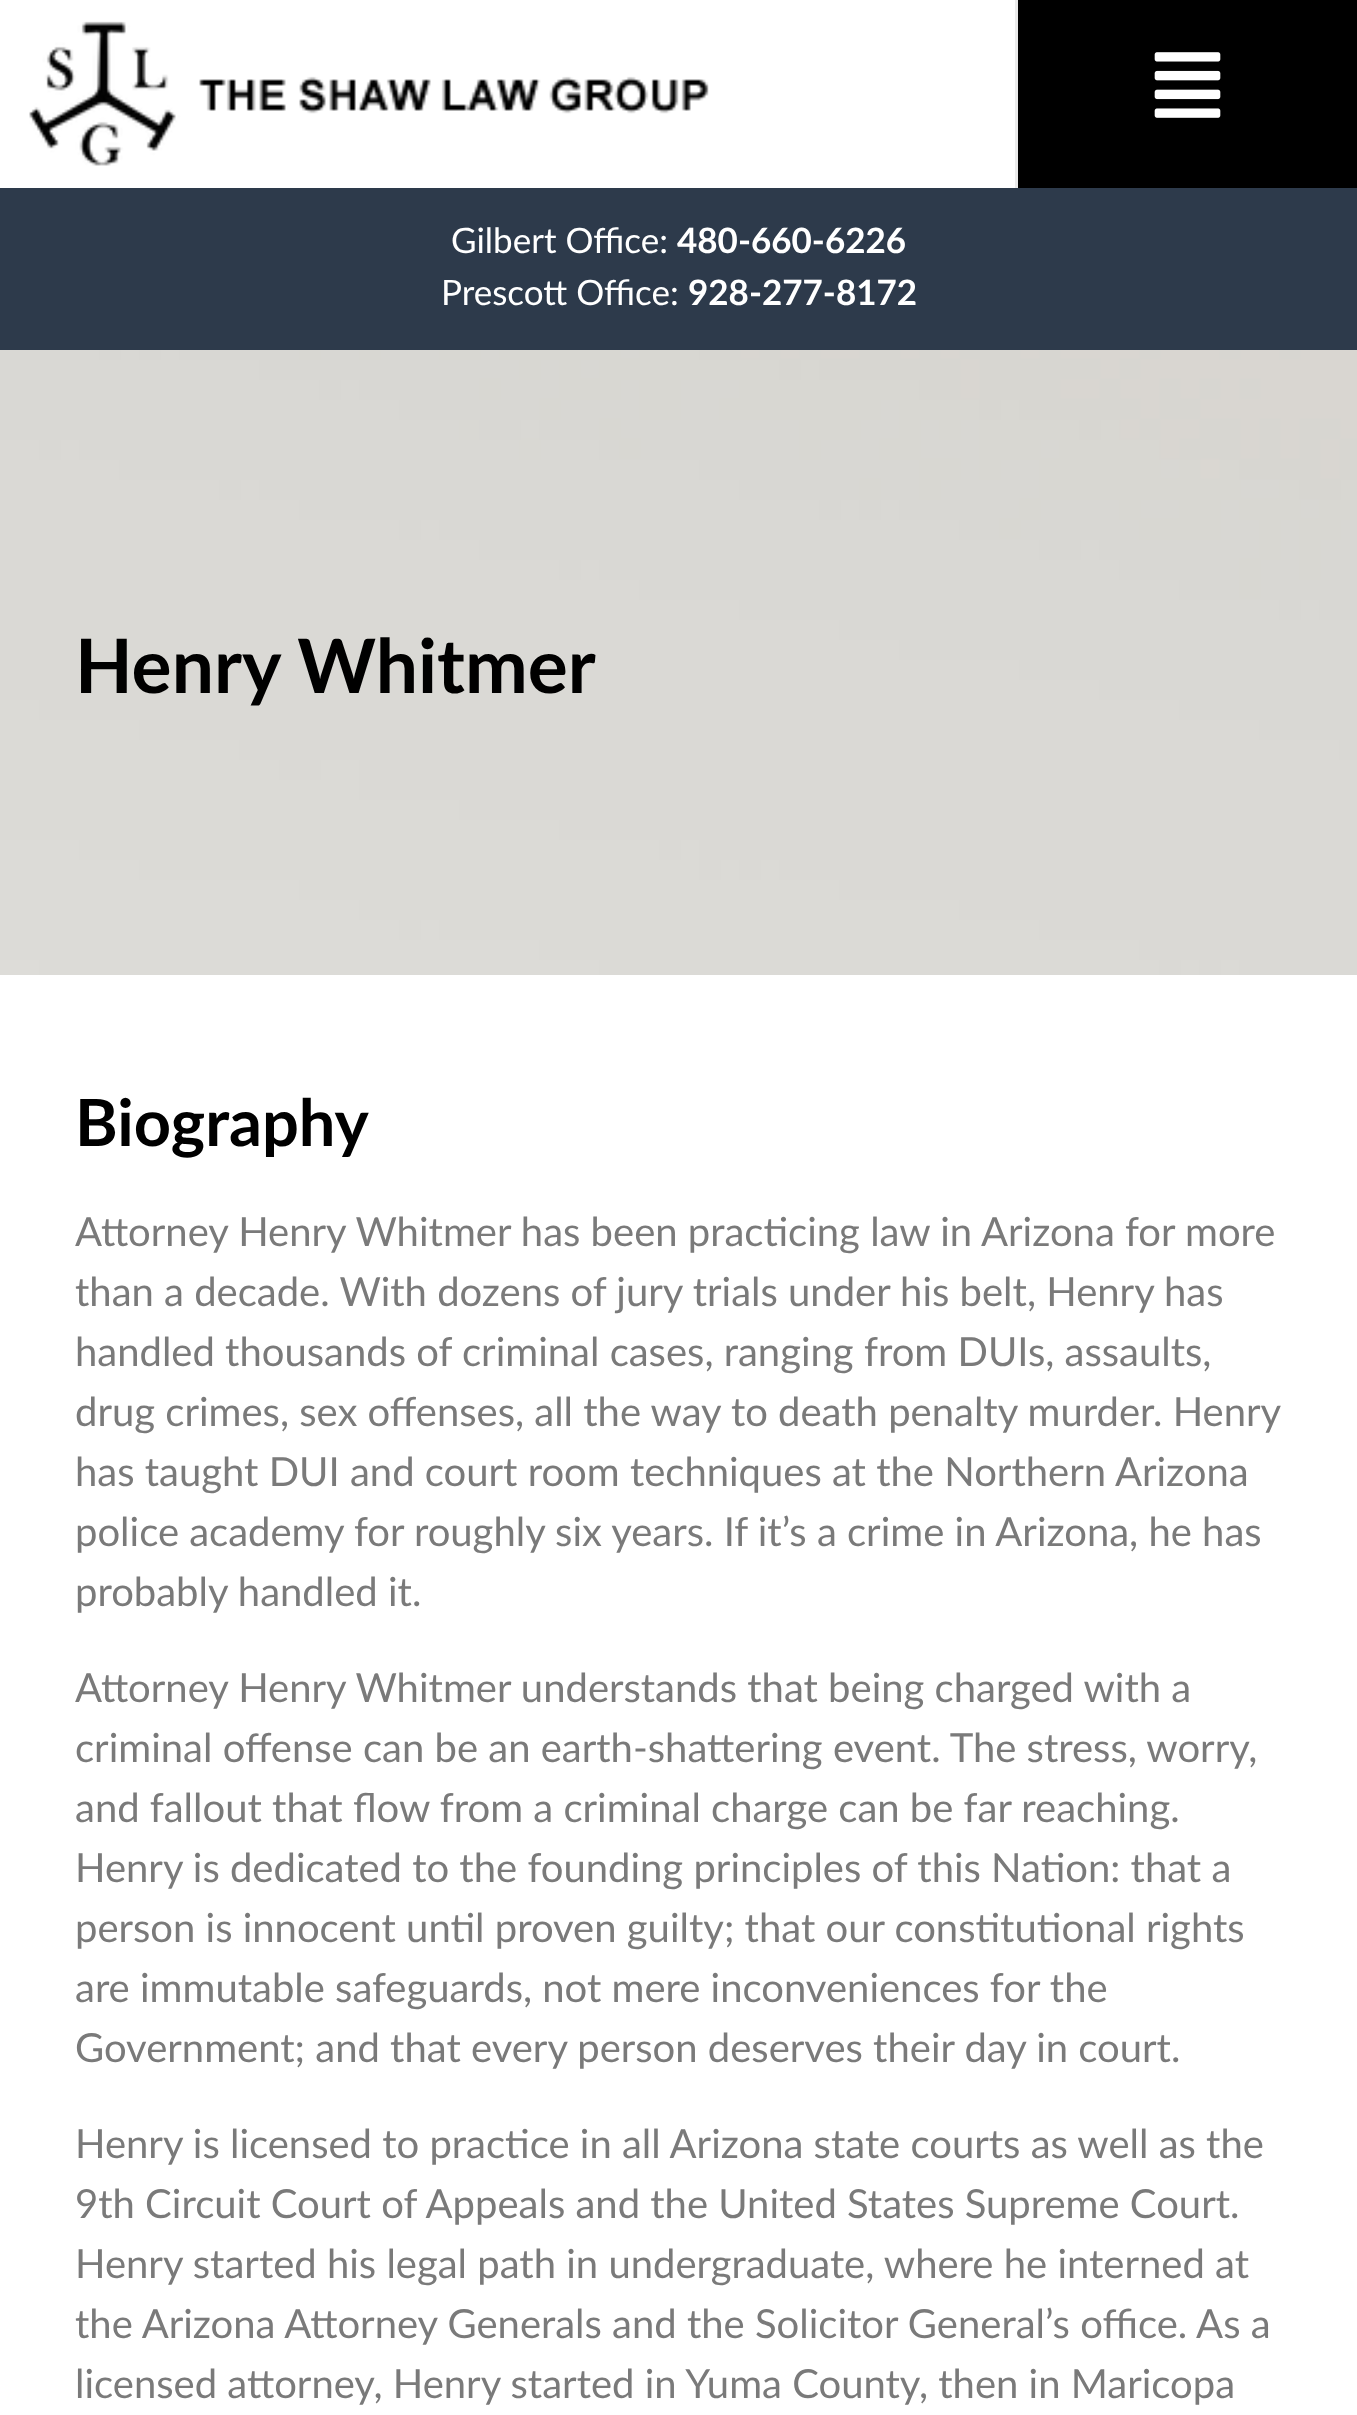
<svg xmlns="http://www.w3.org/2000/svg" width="1357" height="2415">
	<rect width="100%" height="100%" fill="#FFFFFF" />
	<rect x="1015" y="0" width="3" height="188" fill="#EAEAEA" />
	<image x="29" y="21" width="680" height="145" href="assets/img1.png" />
	<rect x="1018" y="0" width="339" height="188" fill="#000000" />
	<image x="1154" y="52" width="67" height="66" href="assets/img2.png" />
	<rect x="0" y="188" width="1357" height="162" fill="#2D3A4B" />
	<text x="451" y="253" font-family="Lato" font-size="35" fill="#FFFFFF">Gilbert Office:</text>
	<text x="677" y="253" font-family="Lato" font-size="35" font-weight="700" fill="#FFFFFF">480-660-6226</text>
	<text x="441" y="305" font-family="Lato" font-size="35" fill="#FFFFFF">Prescott Office:</text>
	<text x="688" y="305" font-family="Lato" font-size="35" font-weight="700" fill="#FFFFFF">928-277-8172</text>
	<image x="0" y="350" width="1357" height="625" href="assets/img3.png" />
	<text x="75" y="693" font-family="Lato" font-size="75" font-weight="700" fill="#000000">Henry Whitmer</text>
	<text x="75" y="1146" font-family="Lato" font-size="65" font-weight="700" fill="#000000">Biography</text>
	<g font-family="Lato" font-size="40" fill="#7A7A7A">
		<text x="75" y="1246">Attorney Henry Whitmer has been practicing law in Arizona for more</text>
		<text x="75" y="1306">than a decade. With dozens of jury trials under his belt, Henry has</text>
		<text x="75" y="1366">handled thousands of criminal cases, ranging from DUIs, assaults,</text>
		<text x="75" y="1426">drug crimes, sex offenses, all the way to death penalty murder. Henry</text>
		<text x="75" y="1486">has taught DUI and court room techniques at the Northern Arizona</text>
		<text x="75" y="1546">police academy for roughly six years. If it’s a crime in Arizona, he has</text>
		<text x="75" y="1606">probably handled it.</text>
		<text x="75" y="1702">Attorney Henry Whitmer understands that being charged with a</text>
		<text x="75" y="1762">criminal offense can be an earth-shattering event. The stress, worry,</text>
		<text x="75" y="1822">and fallout that flow from a criminal charge can be far reaching.</text>
		<text x="75" y="1882">Henry is dedicated to the founding principles of this Nation: that a</text>
		<text x="75" y="1942">person is innocent until proven guilty; that our constitutional rights</text>
		<text x="75" y="2002">are immutable safeguards, not mere inconveniences for the</text>
		<text x="75" y="2062">Government; and that every person deserves their day in court.</text>
		<text x="75" y="2158">Henry is licensed to practice in all Arizona state courts as well as the</text>
		<text x="75" y="2218">9th Circuit Court of Appeals and the United States Supreme Court.</text>
		<text x="75" y="2278">Henry started his legal path in undergraduate, where he interned at</text>
		<text x="75" y="2338">the Arizona Attorney Generals and the Solicitor General’s office. As a</text>
		<text x="75" y="2398">licensed attorney, Henry started in Yuma County, then in Maricopa</text>
	</g>
</svg>
